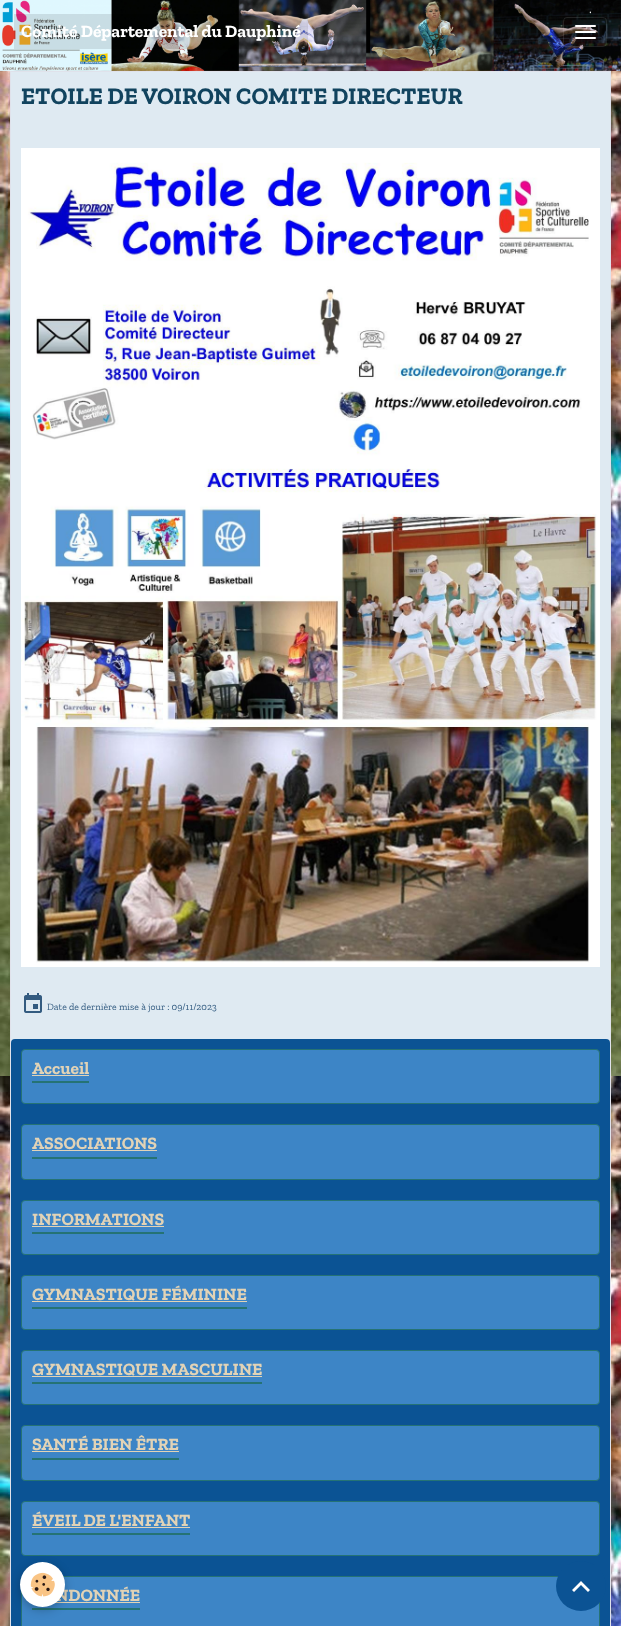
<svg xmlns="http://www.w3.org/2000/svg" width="621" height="1626">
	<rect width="100%" height="100%" fill="#FFFFFF" />
	<image x="0" y="0" width="621" height="1626" href="assets/img1.png" />
	<image x="0" y="0" width="621" height="71" href="assets/img2.png" />
	<rect x="14" y="14" width="294" height="35" fill="#000000" fill-opacity="0.1" />
	<text x="21" y="37" font-family="Zilla Slab" font-size="17.5" font-weight="700" fill="#FFFFFF">Comité Départemental du Dauphiné</text>
	<rect x="563.5" y="17.5" width="43" height="29" rx="3.5" fill="none" stroke="#FFFFFF" stroke-opacity="0.1" />
	<rect x="575" y="25" width="21" height="2" rx="1" fill="#FFFFFF" />
	<rect x="575" y="31" width="21" height="2" rx="1" fill="#FFFFFF" />
	<rect x="575" y="37" width="21" height="2" rx="1" fill="#FFFFFF" />
	<rect x="11" y="72" width="599" height="971" fill="#DFEAF2" />
	<rect x="10.5" y="71.5" width="600" height="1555" fill="none" stroke="#E0E2EB" />
	<text x="21" y="104" font-family="Zilla Slab" font-size="23.75" font-weight="700" fill="#11435E">ETOILE DE VOIRON COMITE DIRECTEUR</text>
	<image x="21" y="148" width="579" height="819" href="assets/img3.png" />
	<image x="24" y="993" width="18" height="20" href="assets/img4.png" />
	<text x="47" y="1010" font-family="Zilla Slab" font-size="9.75" fill="#325B80">Date de dernière mise à jour : 09/11/2023</text>
	<rect x="11" y="1039" width="599" height="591" rx="4" fill="#0B5394" />
	<rect x="21.5" y="1049.5" width="578" height="54" rx="3.5" fill="#3D85C6" stroke="#257374" />
	<rect x="32" y="1081" width="57" height="2" fill="#257374" />
	<text x="32" y="1074" font-family="Zilla Slab" font-size="17.5" font-weight="700" fill="#E2D3B6">Accueil</text>
	<rect x="32" y="1075" width="57" height="1" fill="#E2D3B6" />
	<rect x="21.5" y="1124.5" width="578" height="55" rx="3.5" fill="#3D85C6" stroke="#257374" />
	<rect x="32" y="1157" width="125" height="2" fill="#257374" />
	<text x="32" y="1149" font-family="Zilla Slab" font-size="17.5" font-weight="700" fill="#E2D3B6">ASSOCIATIONS</text>
	<rect x="32" y="1150" width="125" height="1" fill="#E2D3B6" />
	<rect x="21.5" y="1200.5" width="578" height="54" rx="3.5" fill="#3D85C6" stroke="#257374" />
	<rect x="32" y="1232" width="132" height="2" fill="#257374" />
	<text x="32" y="1225" font-family="Zilla Slab" font-size="17.5" font-weight="700" fill="#E2D3B6">INFORMATIONS</text>
	<rect x="32" y="1226" width="132" height="1" fill="#E2D3B6" />
	<rect x="21.5" y="1275.5" width="578" height="54" rx="3.5" fill="#3D85C6" stroke="#257374" />
	<rect x="32" y="1307" width="215" height="2" fill="#257374" />
	<text x="32" y="1300" font-family="Zilla Slab" font-size="17.5" font-weight="700" fill="#E2D3B6">GYMNASTIQUE FÉMININE</text>
	<rect x="32" y="1301" width="215" height="1" fill="#E2D3B6" />
	<rect x="21.5" y="1350.5" width="578" height="54" rx="3.5" fill="#3D85C6" stroke="#257374" />
	<rect x="32" y="1382" width="230" height="2" fill="#257374" />
	<text x="32" y="1375" font-family="Zilla Slab" font-size="17.5" font-weight="700" fill="#E2D3B6">GYMNASTIQUE MASCULINE</text>
	<rect x="32" y="1376" width="230" height="1" fill="#E2D3B6" />
	<rect x="21.5" y="1425.5" width="578" height="55" rx="3.5" fill="#3D85C6" stroke="#257374" />
	<rect x="32" y="1458" width="147" height="2" fill="#257374" />
	<text x="32" y="1450" font-family="Zilla Slab" font-size="17.5" font-weight="700" fill="#E2D3B6">SANTÉ BIEN ÊTRE</text>
	<rect x="32" y="1451" width="147" height="1" fill="#E2D3B6" />
	<rect x="21.5" y="1501.5" width="578" height="54" rx="3.5" fill="#3D85C6" stroke="#257374" />
	<rect x="32" y="1533" width="158" height="2" fill="#257374" />
	<text x="32" y="1526" font-family="Zilla Slab" font-size="17.5" font-weight="700" fill="#E2D3B6">ÉVEIL DE L'ENFANT</text>
	<rect x="32" y="1527" width="158" height="1" fill="#E2D3B6" />
	<rect x="21.5" y="1576.5" width="578" height="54" rx="3.5" fill="#3D85C6" stroke="#257374" />
	<rect x="32" y="1608" width="108" height="2" fill="#257374" />
	<text x="55" y="1601" font-family="Zilla Slab" font-size="17.5" font-weight="700" fill="#E2D3B6">NDONNÉE</text>
	<rect x="55" y="1602" width="85" height="1" fill="#E2D3B6" />
	<rect x="20" y="1565" width="45" height="45" rx="22.5" fill="#000000" fill-opacity="0.24" filter="blur(5px)" />
	<circle cx="42.5" cy="1584.5" r="22.5" fill="#FFFFFF" />
	<image x="30" y="1572" width="25" height="25" href="assets/img5.png" />
	<circle cx="581" cy="1586" r="25" fill="#0B5394" />
	<path d="M581 1581L590 1590L588 1592L581 1585L574 1592L572 1590Z" fill="#FFFFFF" />
</svg>
